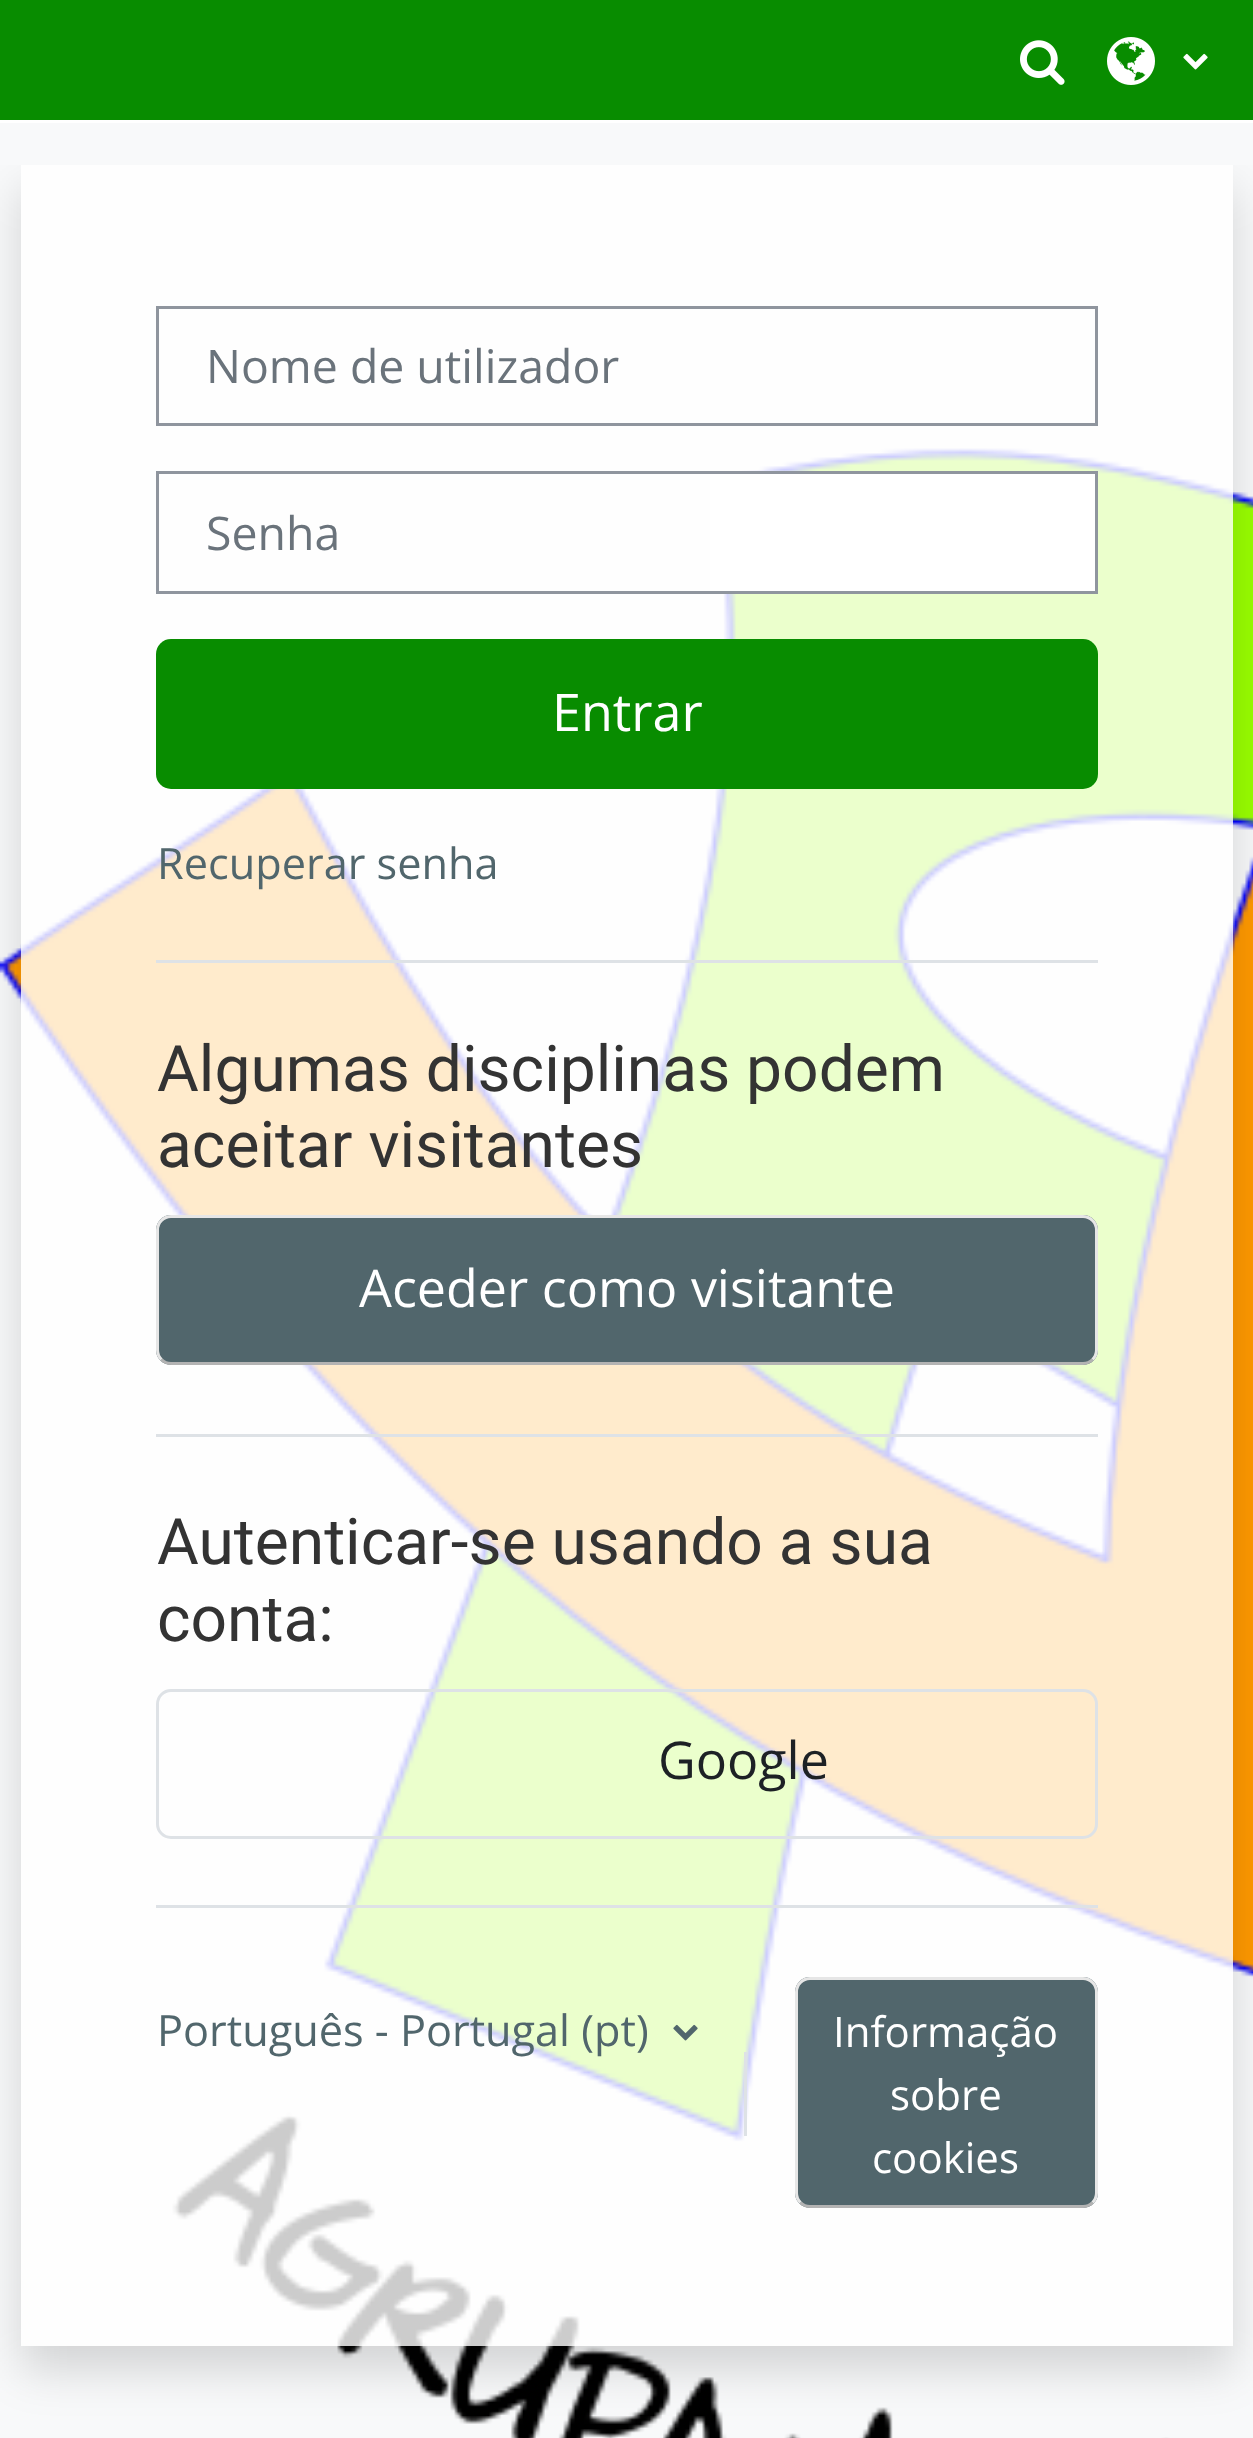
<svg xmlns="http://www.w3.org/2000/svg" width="1253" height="2438">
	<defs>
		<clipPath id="clip1"><rect x="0" y="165" width="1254" height="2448" /></clipPath>
		<clipPath id="clip2"><path d="M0 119H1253V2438H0ZM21 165H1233V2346H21Z" clip-rule="evenodd" /></clipPath>
	</defs>
	<rect width="100%" height="100%" fill="#F8F9FA" />
	<rect x="21" y="165" width="1212" height="2181" fill="#FEFEFE" />
	<image x="0" y="448" width="1253" height="1990" href="assets/img1.png" />
	<g clip-path="url(#clip1)">
		<g clip-path="url(#clip2)">
			<rect x="21" y="189" width="1212" height="2181" fill="#000000" fill-opacity="0.15" filter="blur(23px)" />
		</g>
	</g>
	<rect x="0" y="0" width="1253" height="120" fill="#088C00" />
	<rect x="0" y="120" width="1253" height="3" fill="#FFFFFF" />
	<image x="1020" y="40" width="45" height="45" href="assets/img2.png" />
	<image x="1107" y="37" width="48" height="48" href="assets/img3.png" />
	<image x="1183" y="53" width="25" height="17" href="assets/img4.png" />
	<rect x="157.5" y="307.5" width="939" height="117" fill="none" stroke="#8F959E" stroke-width="3" />
	<text x="206" y="383" font-family="Open Sans" font-size="46.4" fill="#6A737B">Nome de utilizador</text>
	<rect x="710" y="474" width="385" height="117" fill="#FFFFFF" />
	<rect x="157.5" y="472.5" width="939" height="120" fill="none" stroke="#8F959E" stroke-width="3" />
	<text x="206" y="550" font-family="Open Sans" font-size="46.4" fill="#6A737B">Senha</text>
	<rect x="156" y="639" width="942" height="150" rx="15" fill="#088C00" />
	<text x="552" y="731" font-family="Open Sans" font-size="52" fill="#FFFFFF">Entrar</text>
	<text x="157" y="879" font-family="Open Sans" font-size="43.25" fill="#51666C">Recuperar senha</text>
	<rect x="156" y="960" width="942" height="3" fill="#DEE2E6" />
	<g font-family="Roboto" font-size="64.1" fill="#333333">
		<text x="157" y="1091">Algumas disciplinas podem</text>
		<text x="157" y="1167">aceitar visitantes</text>
	</g>
	<rect x="156" y="1215" width="942" height="150" rx="15" fill="#51666C" />
	<path d="M1092.5 1359.5C1090 1362 1086.5 1363.5 1083 1363.5H171C167.5 1363.5 164 1362 161.5 1359.5" fill="none" stroke="#B3B3B3" stroke-width="3" />
	<path d="M161.5 1359.5C159 1357 157.5 1353.5 157.5 1350V1230C157.5 1226.5 159 1223 161.5 1220.5C164 1218 167.5 1216.5 171 1216.5H1083C1086.5 1216.5 1090 1218 1092.5 1220.5C1095 1223 1096.5 1226.5 1096.5 1230V1350C1096.5 1353.5 1095 1357 1092.5 1359.5" fill="none" stroke="#E6E6E6" stroke-width="3" />
	<text x="359" y="1307" font-family="Open Sans" font-size="52" fill="#FFFFFF">Aceder como visitante</text>
	<rect x="156" y="1434" width="942" height="3" fill="#DEE2E6" />
	<g font-family="Roboto" font-size="64.1" fill="#333333">
		<text x="157" y="1564">Autenticar-se usando a sua</text>
		<text x="157" y="1641">conta:</text>
	</g>
	<rect x="157.5" y="1690.5" width="939" height="147" rx="13.5" fill="none" stroke="#DEE2E6" stroke-width="3" />
	<text x="658" y="1779" font-family="Open Sans" font-size="52" fill="#1D2125">Google</text>
	<rect x="156" y="1905" width="942" height="3" fill="#DEE2E6" />
	<text x="157" y="2046" font-family="Open Sans" font-size="43.25" fill="#51666C">Português - Portugal (pt)</text>
	<image x="673" y="2024" width="25" height="17" href="assets/img5.png" />
	<rect x="744" y="2052" width="3" height="84" fill="#DEE2E6" />
	<rect x="795" y="1977" width="303" height="231" rx="15" fill="#51666C" />
	<path d="M1092.5 2202.5C1090 2205 1086.5 2206.5 1083 2206.5H810C806.5 2206.5 803 2205 800.5 2202.5" fill="none" stroke="#B3B3B3" stroke-width="3" />
	<path d="M800.5 2202.5C798 2200 796.5 2196.5 796.5 2193V1992C796.5 1988.5 798 1985 800.5 1982.5C803 1980 806.5 1978.5 810 1978.5H1083C1086.5 1978.5 1090 1980 1092.5 1982.5C1095 1985 1096.5 1988.5 1096.5 1992V2193C1096.5 2196.5 1095 2200 1092.5 2202.5" fill="none" stroke="#E6E6E6" stroke-width="3" />
	<g font-family="Open Sans" font-size="42" fill="#FFFFFF">
		<text x="833" y="2047">Informação</text>
		<text x="890" y="2110">sobre</text>
		<text x="872" y="2173">cookies</text>
	</g>
</svg>
